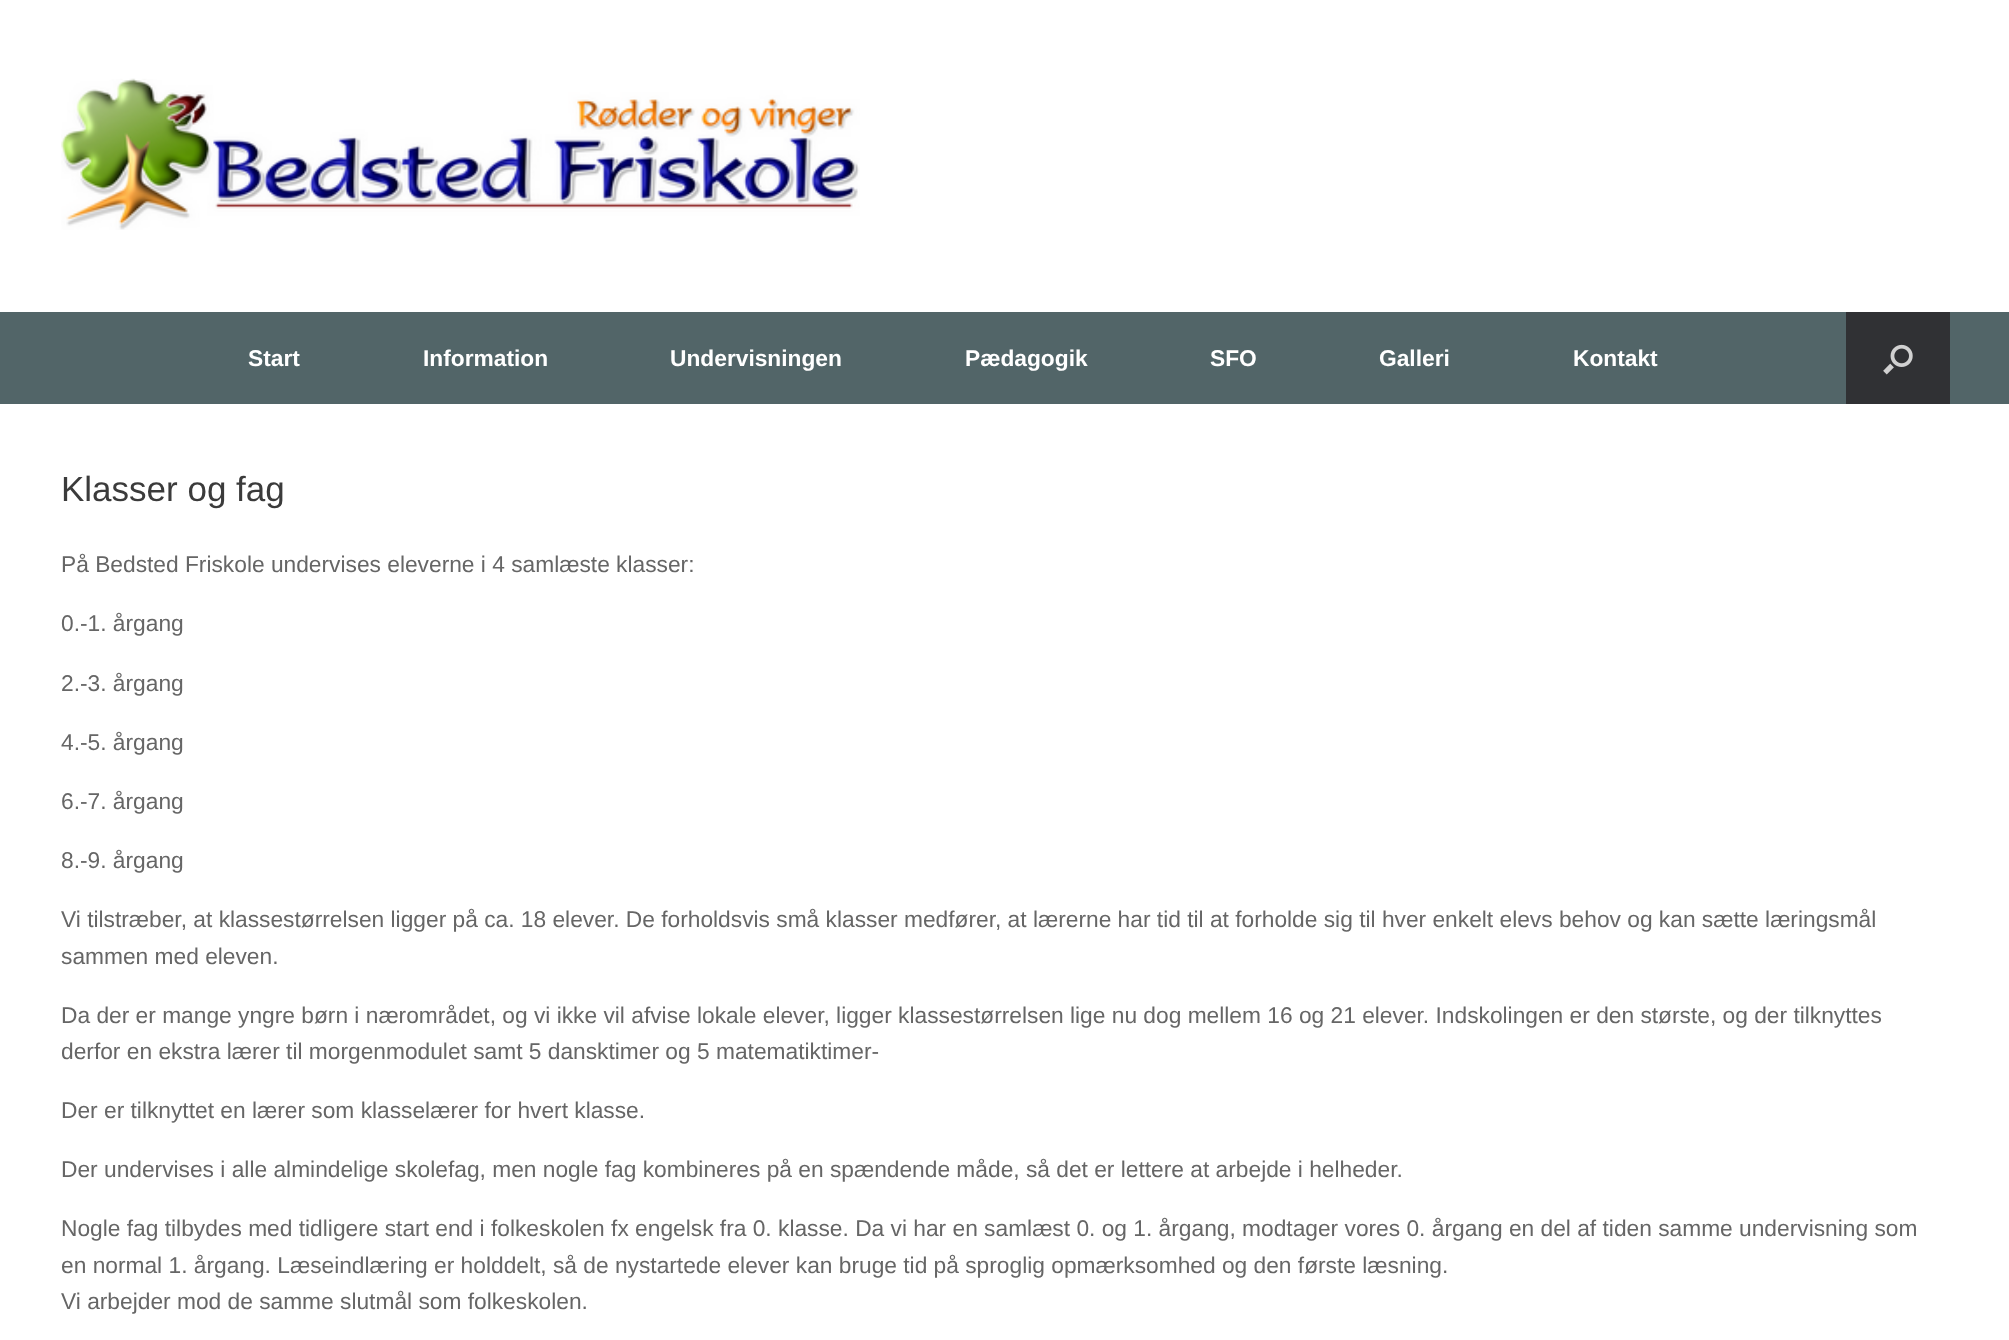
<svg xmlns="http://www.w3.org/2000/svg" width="2009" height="1340">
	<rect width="100%" height="100%" fill="#FFFFFF" />
	<image x="61" y="78" width="799" height="152" href="assets/img1.png" />
	<rect x="0" y="312" width="2009" height="92" fill="#526568" />
	<g font-family="Liberation Sans" font-size="22.75" font-weight="700" fill="#FFFFFF">
		<text x="248" y="366">Start</text>
		<text x="423" y="366">Information</text>
		<text x="670" y="366">Undervisningen</text>
		<text x="965" y="366">Pædagogik</text>
		<text x="1210" y="366">SFO</text>
		<text x="1379" y="366">Galleri</text>
		<text x="1573" y="366">Kontakt</text>
	</g>
	<rect x="1846" y="312" width="104" height="92" fill="#303134" />
	<image x="1883" y="344" width="30" height="31" href="assets/img2.png" />
	<text x="61" y="501" font-family="Liberation Sans" font-size="35" fill="#3B3B3B">Klasser og fag</text>
	<g font-family="Liberation Sans" font-size="22.75" fill="#666666">
		<text x="61" y="572">På Bedsted Friskole undervises eleverne i 4 samlæste klasser:</text>
		<text x="61" y="631">0.-1. årgang</text>
		<text x="61" y="691">2.-3. årgang</text>
		<text x="61" y="750">4.-5. årgang</text>
		<text x="61" y="809">6.-7. årgang</text>
		<text x="61" y="868">8.-9. årgang</text>
		<text x="61" y="927">Vi tilstræber, at klassestørrelsen ligger på ca. 18 elever. De forholdsvis små klasser medfører, at lærerne har tid til at forholde sig til hver enkelt elevs behov og kan sætte læringsmål</text>
		<text x="61" y="964">sammen med eleven.</text>
		<text x="61" y="1023">Da der er mange yngre børn i nærområdet, og vi ikke vil afvise lokale elever, ligger klassestørrelsen lige nu dog mellem 16 og 21 elever. Indskolingen er den største, og der tilknyttes</text>
		<text x="61" y="1059">derfor en ekstra lærer til morgenmodulet samt 5 dansktimer og 5 matematiktimer-</text>
		<text x="61" y="1118">Der er tilknyttet en lærer som klasselærer for hvert klasse.</text>
		<text x="61" y="1177">Der undervises i alle almindelige skolefag, men nogle fag kombineres på en spændende måde, så det er lettere at arbejde i helheder.</text>
		<text x="61" y="1236">Nogle fag tilbydes med tidligere start end i folkeskolen fx engelsk fra 0. klasse. Da vi har en samlæst 0. og 1. årgang, modtager vores 0. årgang en del af tiden samme undervisning som</text>
		<text x="61" y="1273">en normal 1. årgang. Læseindlæring er holddelt, så de nystartede elever kan bruge tid på sproglig opmærksomhed og den første læsning.</text>
		<text x="61" y="1309">Vi arbejder mod de samme slutmål som folkeskolen.</text>
	</g>
</svg>
